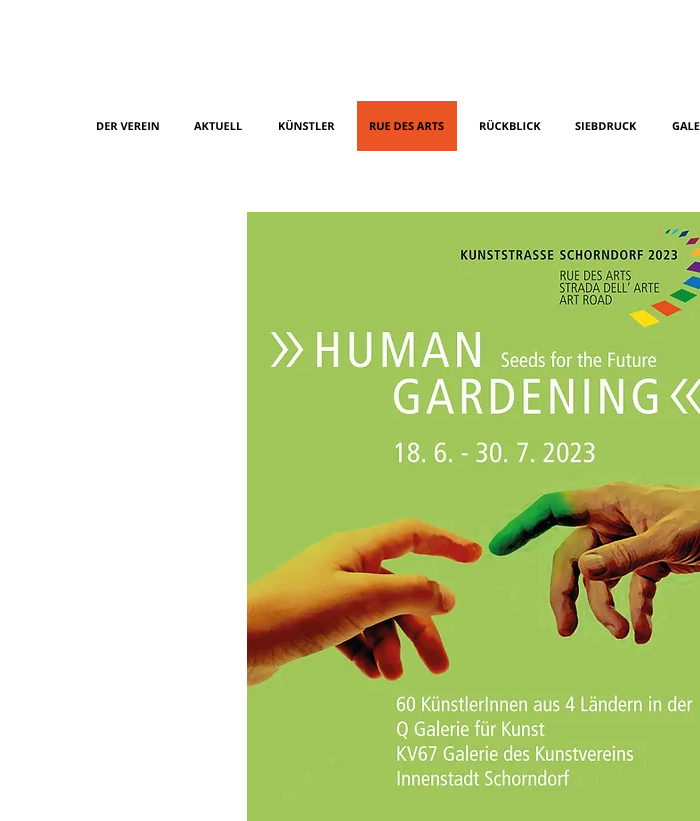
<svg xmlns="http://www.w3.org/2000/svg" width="700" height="821">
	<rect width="100%" height="100%" fill="#FFFFFF" />
	<g font-family="Open Sans" font-size="11" font-weight="700" fill="#000000">
		<text x="96" y="130">DER VEREIN</text>
		<text x="194" y="130">AKTUELL</text>
		<text x="278" y="130">KÜNSTLER</text>
	</g>
	<rect x="357" y="101" width="100" height="50" fill="#EA5523" />
	<g font-family="Open Sans" font-size="11" font-weight="700" fill="#000000">
		<text x="369" y="130">RUE DES ARTS</text>
		<text x="479" y="130">RÜCKBLICK</text>
		<text x="575" y="130">SIEBDRUCK</text>
		<text x="672" y="130">GALE</text>
	</g>
	<image x="247" y="212" width="453" height="609" href="assets/img1.png" />
</svg>
